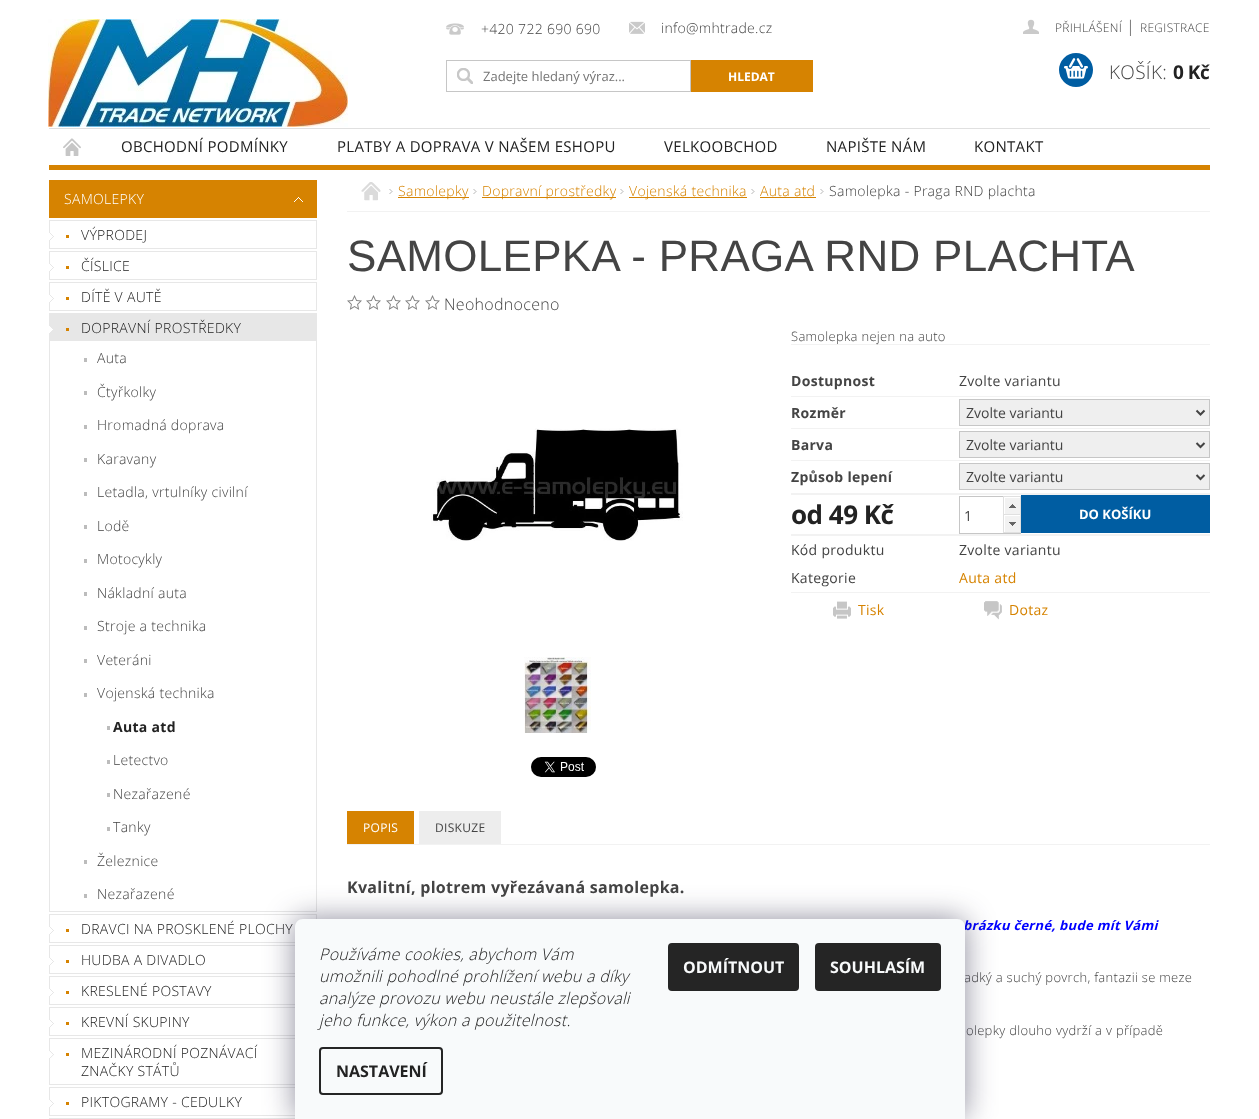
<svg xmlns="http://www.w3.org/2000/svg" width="1259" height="1119">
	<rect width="100%" height="100%" fill="#FFFFFF" />
	<rect x="49" y="165" width="1161" height="5" fill="#D68301" />
	<image x="48" y="19" width="300" height="108" href="assets/img1.png" />
	<image x="446" y="23" width="18" height="12" href="assets/img2.png" />
	<text x="481" y="34" font-family="Open Sans" font-size="14" font-weight="300" letter-spacing="0.3" fill="#444444">+420 722 690 690</text>
	<image x="629" y="21" width="16" height="13" href="assets/img3.png" />
	<text x="661" y="33" font-family="Open Sans" font-size="14" font-weight="300" letter-spacing="0.3" fill="#444444">info@mhtrade.cz</text>
	<image x="457" y="68" width="16" height="16" href="assets/img4.png" />
	<rect x="446.5" y="60.5" width="244" height="31" fill="none" stroke="#C6C6C6" />
	<text x="483" y="81" font-family="Open Sans" font-size="13" fill="#757575">Zadejte hledaný výraz...</text>
	<rect x="691" y="60" width="122" height="32" fill="#D68301" />
	<text x="728" y="81" font-family="Open Sans" font-size="12" font-weight="700" fill="#FFFFFF">HLEDAT</text>
	<image x="1023" y="19" width="16" height="15" href="assets/img5.png" />
	<text x="1055" y="32" font-family="Open Sans" font-size="12" font-weight="300" letter-spacing="0.3" fill="#444444">PŘIHLÁŠENÍ</text>
	<text x="1126" y="32" font-family="Open Sans" font-size="16" font-weight="300" letter-spacing="0.3" fill="#444444">|</text>
	<text x="1140" y="32" font-family="Open Sans" font-size="12" font-weight="300" letter-spacing="0.3" fill="#444444">REGISTRACE</text>
	<circle cx="1076" cy="70" r="17" fill="#005DA2" />
	<image x="1064" y="58" width="24" height="21" href="assets/img6.png" />
	<text x="1109" y="79" font-family="Open Sans" font-size="19" font-weight="300" letter-spacing="0.3" fill="#444444">KOŠÍK:</text>
	<text x="1173" y="79" font-family="Open Sans" font-size="19" font-weight="700" letter-spacing="-0.5" fill="#222222">0 Kč</text>
	<rect x="49" y="128" width="1161" height="1" fill="#E0E0E0" />
	<image x="63" y="138" width="18" height="18" href="assets/img7.png" />
	<g font-family="Open Sans" font-size="15" letter-spacing="0.3" fill="#222222">
		<text x="121" y="152">OBCHODNÍ PODMÍNKY</text>
		<text x="337" y="152">PLATBY A DOPRAVA V NAŠEM ESHOPU</text>
		<text x="664" y="152">VELKOOBCHOD</text>
		<text x="826" y="152">NAPIŠTE NÁM</text>
		<text x="974" y="152">KONTAKT</text>
	</g>
	<rect x="49" y="180" width="268" height="38" fill="#D68301" />
	<image x="294" y="197" width="9" height="5" href="assets/img8.png" />
	<text x="64" y="204" font-family="Open Sans" font-size="14" font-weight="300" letter-spacing="0.3" fill="#FFFFFF">SAMOLEPKY</text>
	<rect x="49.5" y="220.5" width="267" height="28" fill="none" stroke="#E7E7E7" />
	<image x="49" y="233" width="5" height="7" href="assets/img9.png" />
	<rect x="66" y="235" width="3" height="3" fill="#D68301" />
	<text x="81" y="240" font-family="Open Sans" font-size="14" font-weight="300" letter-spacing="0.3" fill="#222222">VÝPRODEJ</text>
	<rect x="49.5" y="251.5" width="267" height="28" fill="none" stroke="#E7E7E7" />
	<image x="49" y="264" width="5" height="7" href="assets/img9.png" />
	<rect x="66" y="266" width="3" height="3" fill="#D68301" />
	<text x="81" y="271" font-family="Open Sans" font-size="14" font-weight="300" letter-spacing="0.3" fill="#222222">ČÍSLICE</text>
	<rect x="49.5" y="282.5" width="267" height="28" fill="none" stroke="#E7E7E7" />
	<image x="49" y="295" width="5" height="7" href="assets/img9.png" />
	<rect x="66" y="297" width="3" height="3" fill="#D68301" />
	<text x="81" y="302" font-family="Open Sans" font-size="14" font-weight="300" letter-spacing="0.3" fill="#222222">DÍTĚ V AUTĚ</text>
	<rect x="49.5" y="313.5" width="267" height="598" fill="none" stroke="#E7E7E7" />
	<rect x="50" y="314" width="266" height="27" fill="#E7E7E7" />
	<image x="49" y="326" width="4" height="7" href="assets/img10.png" />
	<rect x="66" y="328" width="3" height="3" fill="#D68301" />
	<text x="81" y="333" font-family="Open Sans" font-size="14" font-weight="300" letter-spacing="0.3" fill="#222222">DOPRAVNÍ PROSTŘEDKY</text>
	<rect x="84" y="358" width="3" height="4" fill="#BCBCBC" />
	<text x="97" y="363" font-family="Open Sans" font-size="14" font-weight="300" letter-spacing="0.3" fill="#444444">Auta</text>
	<rect x="84" y="391" width="3" height="4" fill="#BCBCBC" />
	<text x="97" y="397" font-family="Open Sans" font-size="14" font-weight="300" letter-spacing="0.3" fill="#444444">Čtyřkolky</text>
	<rect x="84" y="425" width="3" height="4" fill="#BCBCBC" />
	<text x="97" y="430" font-family="Open Sans" font-size="14" font-weight="300" letter-spacing="0.3" fill="#444444">Hromadná doprava</text>
	<rect x="84" y="458" width="3" height="4" fill="#BCBCBC" />
	<text x="97" y="464" font-family="Open Sans" font-size="14" font-weight="300" letter-spacing="0.3" fill="#444444">Karavany</text>
	<rect x="84" y="492" width="3" height="4" fill="#BCBCBC" />
	<text x="97" y="497" font-family="Open Sans" font-size="14" font-weight="300" letter-spacing="0.3" fill="#444444">Letadla, vrtulníky civilní</text>
	<rect x="84" y="525" width="3" height="4" fill="#BCBCBC" />
	<text x="97" y="531" font-family="Open Sans" font-size="14" font-weight="300" letter-spacing="0.3" fill="#444444">Lodě</text>
	<rect x="84" y="559" width="3" height="4" fill="#BCBCBC" />
	<text x="97" y="564" font-family="Open Sans" font-size="14" font-weight="300" letter-spacing="0.3" fill="#444444">Motocykly</text>
	<rect x="84" y="592" width="3" height="4" fill="#BCBCBC" />
	<text x="97" y="598" font-family="Open Sans" font-size="14" font-weight="300" letter-spacing="0.3" fill="#444444">Nákladní auta</text>
	<rect x="84" y="626" width="3" height="4" fill="#BCBCBC" />
	<text x="97" y="631" font-family="Open Sans" font-size="14" font-weight="300" letter-spacing="0.3" fill="#444444">Stroje a technika</text>
	<rect x="84" y="659" width="3" height="4" fill="#BCBCBC" />
	<text x="97" y="665" font-family="Open Sans" font-size="14" font-weight="300" letter-spacing="0.3" fill="#444444">Veteráni</text>
	<rect x="84" y="693" width="3" height="4" fill="#BCBCBC" />
	<text x="97" y="698" font-family="Open Sans" font-size="14" font-weight="300" letter-spacing="0.3" fill="#444444">Vojenská technika</text>
	<rect x="107" y="726" width="3" height="4" fill="#BCBCBC" />
	<text x="113" y="732" font-family="Open Sans" font-size="14" font-weight="700" letter-spacing="0.3" fill="#222222">Auta atd</text>
	<rect x="107" y="760" width="3" height="4" fill="#BCBCBC" />
	<text x="113" y="765" font-family="Open Sans" font-size="14" font-weight="300" letter-spacing="0.3" fill="#444444">Letectvo</text>
	<rect x="107" y="793" width="3" height="4" fill="#BCBCBC" />
	<text x="113" y="799" font-family="Open Sans" font-size="14" font-weight="300" letter-spacing="0.3" fill="#444444">Nezařazené</text>
	<rect x="107" y="827" width="3" height="4" fill="#BCBCBC" />
	<text x="113" y="832" font-family="Open Sans" font-size="14" font-weight="300" letter-spacing="0.3" fill="#444444">Tanky</text>
	<rect x="84" y="860" width="3" height="4" fill="#BCBCBC" />
	<text x="97" y="866" font-family="Open Sans" font-size="14" font-weight="300" letter-spacing="0.3" fill="#444444">Železnice</text>
	<rect x="84" y="894" width="3" height="4" fill="#BCBCBC" />
	<text x="97" y="899" font-family="Open Sans" font-size="14" font-weight="300" letter-spacing="0.3" fill="#444444">Nezařazené</text>
	<rect x="49.5" y="914.5" width="267" height="28" fill="none" stroke="#E7E7E7" />
	<image x="49" y="927" width="5" height="7" href="assets/img9.png" />
	<rect x="66" y="929" width="3" height="3" fill="#D68301" />
	<text x="81" y="934" font-family="Open Sans" font-size="14" font-weight="300" letter-spacing="0.3" fill="#222222">DRAVCI NA PROSKLENÉ PLOCHY</text>
	<rect x="49.5" y="945.5" width="267" height="28" fill="none" stroke="#E7E7E7" />
	<image x="49" y="958" width="5" height="7" href="assets/img9.png" />
	<rect x="66" y="960" width="3" height="3" fill="#D68301" />
	<text x="81" y="965" font-family="Open Sans" font-size="14" font-weight="300" letter-spacing="0.3" fill="#222222">HUDBA A DIVADLO</text>
	<rect x="49.5" y="976.5" width="267" height="28" fill="none" stroke="#E7E7E7" />
	<image x="49" y="989" width="5" height="7" href="assets/img9.png" />
	<rect x="66" y="991" width="3" height="3" fill="#D68301" />
	<text x="81" y="996" font-family="Open Sans" font-size="14" font-weight="300" letter-spacing="0.3" fill="#222222">KRESLENÉ POSTAVY</text>
	<rect x="49.5" y="1007.5" width="267" height="28" fill="none" stroke="#E7E7E7" />
	<image x="49" y="1020" width="5" height="7" href="assets/img9.png" />
	<rect x="66" y="1022" width="3" height="3" fill="#D68301" />
	<text x="81" y="1027" font-family="Open Sans" font-size="14" font-weight="300" letter-spacing="0.3" fill="#222222">KREVNÍ SKUPINY</text>
	<rect x="49.5" y="1038.5" width="267" height="46" fill="none" stroke="#E7E7E7" />
	<image x="49" y="1051" width="5" height="7" href="assets/img11.png" />
	<rect x="66" y="1053" width="3" height="3" fill="#D68301" />
	<g font-family="Open Sans" font-size="14" font-weight="300" letter-spacing="0.3" fill="#222222">
		<text x="81" y="1058">MEZINÁRODNÍ POZNÁVACÍ</text>
		<text x="81" y="1076">ZNAČKY STÁTŮ</text>
	</g>
	<rect x="49.5" y="1087.5" width="267" height="28" fill="none" stroke="#E7E7E7" />
	<image x="49" y="1100" width="5" height="7" href="assets/img9.png" />
	<rect x="66" y="1102" width="3" height="3" fill="#D68301" />
	<text x="81" y="1107" font-family="Open Sans" font-size="14" font-weight="300" letter-spacing="0.3" fill="#222222">PIKTOGRAMY - CEDULKY</text>
	<rect x="49.5" y="1118.5" width="267" height="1" fill="none" stroke="#E7E7E7" />
	<rect x="347" y="211" width="863" height="1" fill="#F2F2F2" />
	<image x="361" y="182" width="20" height="19" href="assets/img12.png" />
	<image x="389" y="189" width="4" height="5" href="assets/img13.png" />
	<rect x="398" y="197" width="71" height="1" fill="#D68301" />
	<text x="398" y="196" font-family="Open Sans" font-size="14" font-weight="300" letter-spacing="0.3" fill="#D68301">Samolepky</text>
	<image x="473" y="189" width="4" height="5" href="assets/img13.png" />
	<rect x="482" y="197" width="134" height="1" fill="#D68301" />
	<text x="482" y="196" font-family="Open Sans" font-size="14" font-weight="300" letter-spacing="0.3" fill="#D68301">Dopravní prostředky</text>
	<image x="620" y="189" width="4" height="5" href="assets/img13.png" />
	<rect x="629" y="197" width="118" height="1" fill="#D68301" />
	<text x="629" y="196" font-family="Open Sans" font-size="14" font-weight="300" letter-spacing="0.3" fill="#D68301">Vojenská technika</text>
	<image x="751" y="189" width="4" height="5" href="assets/img13.png" />
	<text x="760" y="196" font-family="Open Sans" font-size="14" font-weight="300" letter-spacing="0.3" fill="#D68301">Auta atd</text>
	<rect x="760" y="197" width="56" height="1" fill="#D68301" />
	<image x="820" y="189" width="4" height="5" href="assets/img13.png" />
	<text x="829" y="196" font-family="Open Sans" font-size="14" font-weight="300" letter-spacing="0.3" fill="#444444">Samolepka - Praga RND plachta</text>
	<text x="347" y="271" font-family="Liberation Sans" font-size="44" letter-spacing="0.3" fill="#444444">SAMOLEPKA - PRAGA RND PLACHTA</text>
	<image x="347" y="295" width="15" height="15" href="assets/img14.png" />
	<image x="366" y="295" width="15" height="15" href="assets/img14.png" />
	<image x="386" y="295" width="15" height="15" href="assets/img14.png" />
	<image x="405" y="295" width="15" height="15" href="assets/img14.png" />
	<image x="425" y="295" width="15" height="15" href="assets/img14.png" />
	<text x="444" y="310" font-family="Open Sans" font-size="16" font-weight="300" letter-spacing="0.3" fill="#444444">Neohodnoceno</text>
	<image x="431" y="428" width="252" height="113" href="assets/img15.png" />
	<image x="524" y="657" width="67" height="76" href="assets/img16.png" />
	<image x="531" y="757" width="65" height="20" href="assets/img17.png" />
	<rect x="791" y="344" width="419" height="1" fill="#F2F2F2" />
	<text x="791" y="341" font-family="Open Sans" font-size="13" font-weight="300" letter-spacing="0.3" fill="#444444">Samolepka nejen na auto</text>
	<rect x="791" y="396" width="419" height="1" fill="#F2F2F2" />
	<text x="791" y="386" font-family="Open Sans" font-size="14" font-weight="700" letter-spacing="0.3" fill="#444444">Dostupnost</text>
	<text x="959" y="386" font-family="Open Sans" font-size="14" letter-spacing="0.3" fill="#444444">Zvolte variantu</text>
	<rect x="791" y="428" width="419" height="1" fill="#F2F2F2" />
	<text x="791" y="418" font-family="Open Sans" font-size="14" font-weight="700" letter-spacing="0.3" fill="#444444">Rozměr</text>
	<rect x="959.5" y="399.5" width="250" height="26" fill="#EFEFEF" stroke="#C6C6C6" />
	<path d="M1196.5 410.5L1200.5 414.5L1204.5 410.5" fill="none" stroke="#444444" stroke-width="2" />
	<text x="966" y="418" font-family="Open Sans" font-size="14" fill="#444444">Zvolte variantu</text>
	<rect x="791" y="460" width="419" height="1" fill="#F2F2F2" />
	<text x="791" y="450" font-family="Open Sans" font-size="14" font-weight="700" letter-spacing="0.3" fill="#444444">Barva</text>
	<rect x="959.5" y="431.5" width="250" height="26" fill="#EFEFEF" stroke="#C6C6C6" />
	<path d="M1196.5 443L1200.5 447L1204.5 443" fill="none" stroke="#444444" stroke-width="2" />
	<text x="966" y="450" font-family="Open Sans" font-size="14" fill="#444444">Zvolte variantu</text>
	<text x="791" y="482" font-family="Open Sans" font-size="14" font-weight="700" letter-spacing="0.3" fill="#444444">Způsob lepení</text>
	<rect x="959.5" y="463.5" width="250" height="26" fill="#EFEFEF" stroke="#C6C6C6" />
	<path d="M1196.5 475L1200.5 479L1204.5 475" fill="none" stroke="#444444" stroke-width="2" />
	<text x="966" y="482" font-family="Open Sans" font-size="14" fill="#444444">Zvolte variantu</text>
	<rect x="791" y="493" width="419" height="2" fill="#F2F2F2" />
	<rect x="791" y="534" width="419" height="2" fill="#F2F2F2" />
	<text x="791" y="524" font-family="Open Sans" font-size="26" font-weight="700" letter-spacing="-0.5" fill="#222222">od 49 Kč</text>
	<rect x="959.5" y="496.5" width="61" height="37" fill="none" stroke="#C6C6C6" />
	<image x="1003" y="496" width="18" height="18" href="assets/img18.png" />
	<text x="964" y="521" font-family="Open Sans" font-size="14" fill="#444444">1</text>
	<image x="1003" y="514" width="18" height="19" href="assets/img19.png" />
	<rect x="1021" y="495" width="189" height="38" fill="#005DA2" />
	<text x="1079" y="519" font-family="Open Sans" font-size="13" font-weight="700" fill="#FFFFFF">DO KOŠÍKU</text>
	<g font-family="Open Sans" font-size="14" letter-spacing="0.3" fill="#444444">
		<text x="791" y="555">Kód produktu</text>
		<text x="959" y="555">Zvolte variantu</text>
	</g>
	<rect x="791" y="592" width="419" height="1" fill="#F2F2F2" />
	<text x="791" y="583" font-family="Open Sans" font-size="14" letter-spacing="0.3" fill="#444444">Kategorie</text>
	<text x="959" y="583" font-family="Open Sans" font-size="14" letter-spacing="0.3" fill="#D68301">Auta atd</text>
	<image x="833" y="601" width="18" height="18" href="assets/img20.png" />
	<text x="858" y="615" font-family="Open Sans" font-size="14" letter-spacing="0.3" fill="#D68301">Tisk</text>
	<image x="984" y="601" width="18" height="19" href="assets/img21.png" />
	<text x="1009" y="615" font-family="Open Sans" font-size="14" letter-spacing="0.3" fill="#D68301">Dotaz</text>
	<rect x="347" y="844" width="863" height="1" fill="#F2F2F2" />
	<rect x="347" y="811" width="67" height="33" fill="#D68301" />
	<text x="363" y="832" font-family="Open Sans" font-size="12" letter-spacing="0.3" fill="#FFFFFF">POPIS</text>
	<rect x="419" y="811" width="82" height="33" fill="#EDEDED" />
	<text x="435" y="832" font-family="Open Sans" font-size="12" letter-spacing="0.3" fill="#444444">DISKUZE</text>
	<text x="347" y="893" font-family="Open Sans" font-size="16" font-weight="700" letter-spacing="0.3" fill="#444444">Kvalitní, plotrem vyřezávaná samolepka.</text>
	<text x="963" y="930" font-family="Open Sans" font-size="13" font-weight="700" font-style="italic" letter-spacing="0.3" fill="#0000FF">brázku černé, bude mít Vámi</text>
	<g font-family="Open Sans" font-size="13" font-weight="300" letter-spacing="0.3" fill="#444444">
		<text x="964" y="982">adký a suchý povrch, fantazii se meze</text>
		<text x="966" y="1035">olepky dlouho vydrží a v případě</text>
	</g>
	<rect x="295" y="919" width="670" height="200" rx="8" fill="#1B1939" fill-opacity="0.5" filter="blur(15px)" />
	<path d="M303 919H957C961.5 919 965 922.5 965 927V1119H295V927C295 922.5 298.5 919 303 919Z" fill="#F8FAFB" />
	<g font-family="Open Sans" font-size="16" font-weight="300" font-style="italic" letter-spacing="0.3" fill="#222222">
		<text x="319" y="960">Používáme cookies, abychom Vám</text>
		<text x="319" y="982">umožnili pohodlné prohlížení webu a díky</text>
		<text x="319" y="1004">analýze provozu webu neustále zlepšovali</text>
		<text x="319" y="1026">jeho funkce, výkon a použitelnost.</text>
	</g>
	<rect x="320" y="1048" width="122" height="46" rx="3" fill="none" stroke="#252525" stroke-width="2" />
	<text x="336" y="1077" font-family="Open Sans" font-size="16" font-weight="700" fill="#222222">NASTAVENÍ</text>
	<rect x="668" y="943" width="131" height="48" rx="4" fill="#252525" />
	<text x="683" y="973" font-family="Open Sans" font-size="16" font-weight="700" fill="#F8FAFB">ODMÍTNOUT</text>
	<rect x="815" y="943" width="126" height="48" rx="4" fill="#252525" />
	<text x="830" y="973" font-family="Open Sans" font-size="16" font-weight="700" fill="#F8FAFB">SOUHLASÍM</text>
</svg>
